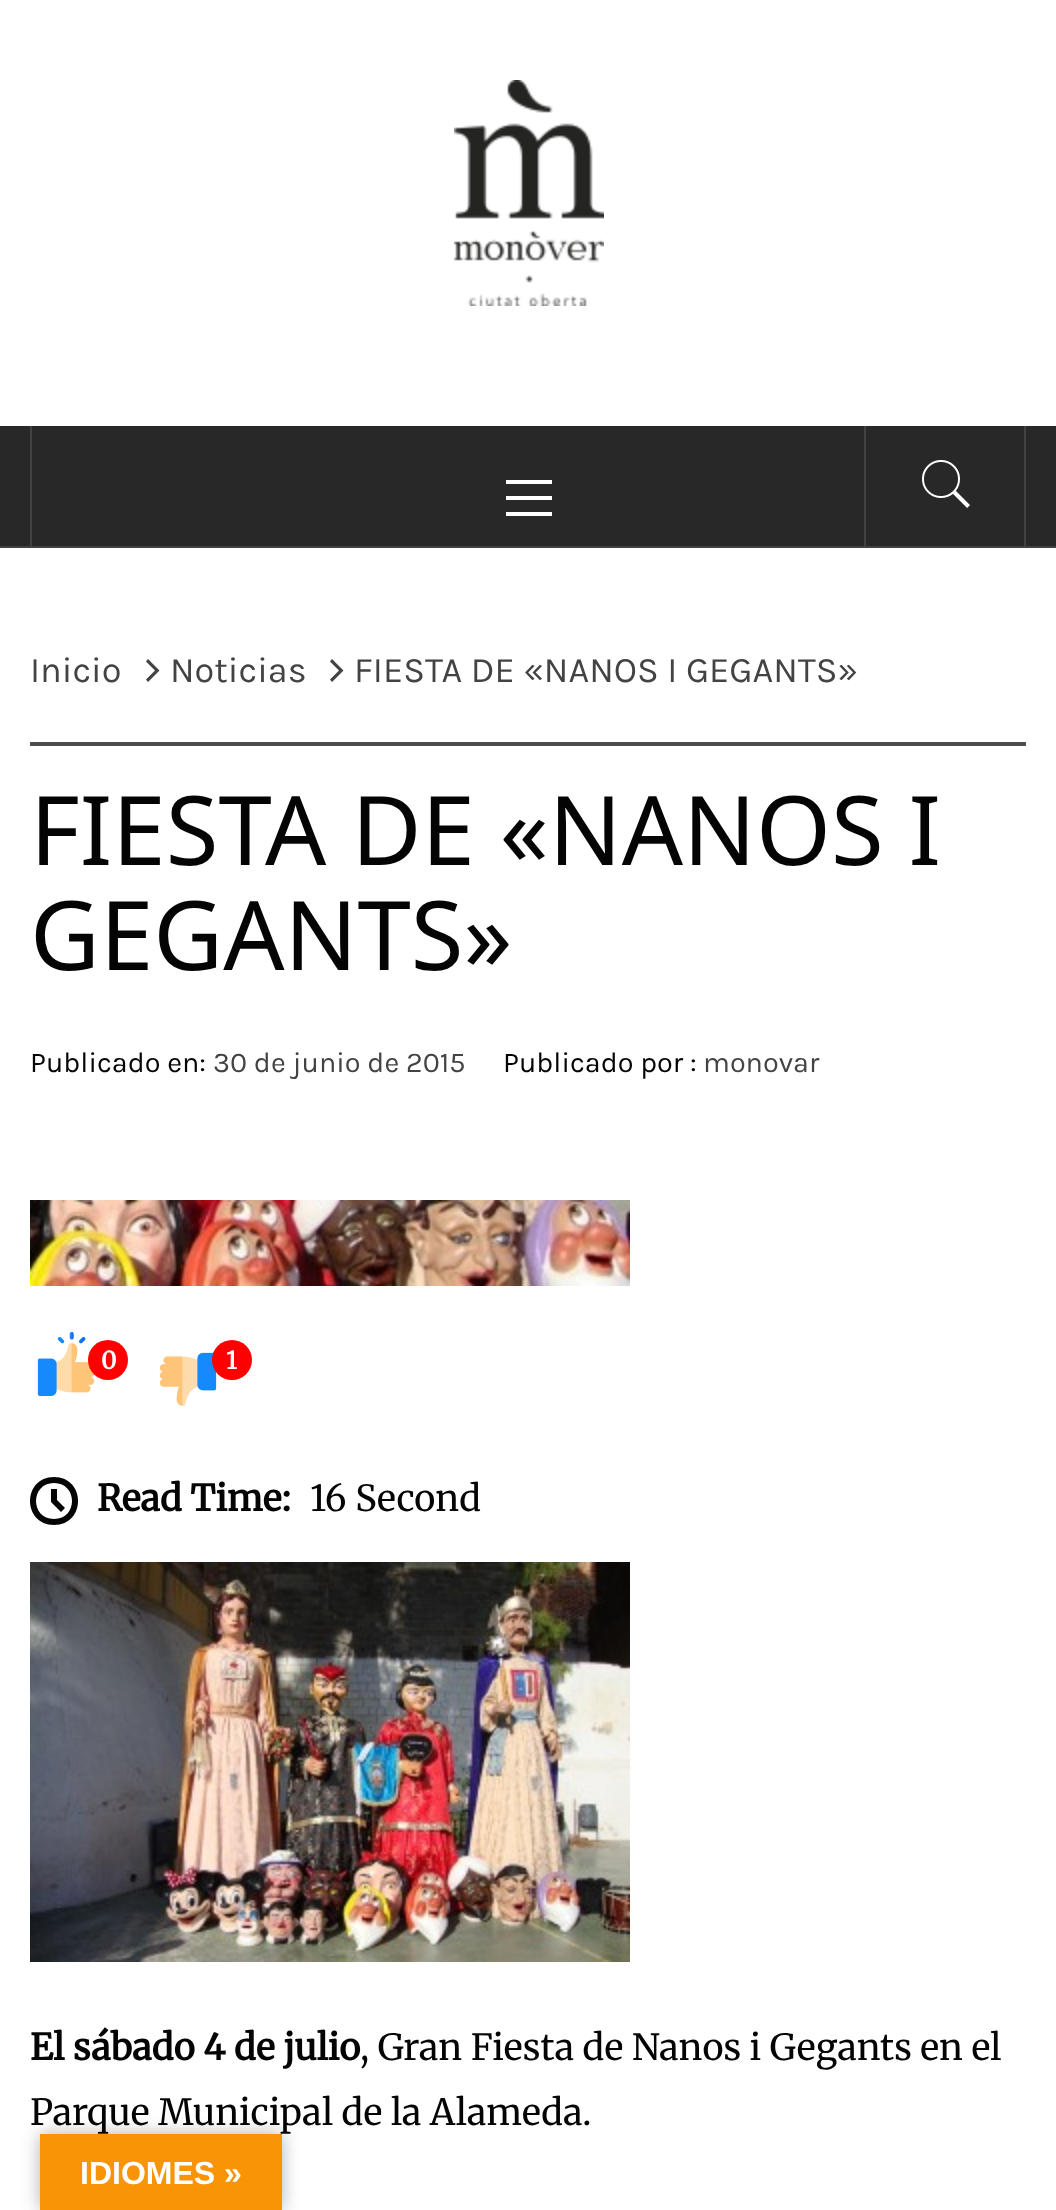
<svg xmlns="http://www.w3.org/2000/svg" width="1056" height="2210">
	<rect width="100%" height="100%" fill="#FFFFFF" />
	<image x="454" y="80" width="150" height="226" href="assets/img1.png" />
	<rect x="0" y="426" width="1056" height="120" fill="#282828" />
	<rect x="0" y="546" width="1056" height="2" fill="#424242" />
	<rect x="1024" y="426" width="2" height="120" fill="#424242" />
	<rect x="30" y="426" width="2" height="120" fill="#424242" />
	<rect x="506" y="496" width="46" height="4" fill="#FFFFFF" />
	<rect x="506" y="480" width="46" height="4" fill="#FFFFFF" />
	<rect x="506" y="512" width="46" height="4" fill="#FFFFFF" />
	<rect x="864" y="426" width="2" height="120" fill="#424242" />
	<image x="922" y="460" width="48" height="48" href="assets/img2.png" />
	<rect x="30" y="742" width="996" height="4" fill="#4E4E4E" />
	<text x="30" y="682" font-family="Karla" font-size="36" fill="#434343">Inicio</text>
	<path d="M146 661.5L148 659L159.5 670.5L148 682L146 679.5L155 670.5Z" fill="#434343" />
	<text x="170" y="682" font-family="Karla" font-size="36" fill="#434343">Noticias</text>
	<path d="M330 661.5L332 659L343.5 670.5L332 682L330 679.5L339 670.5Z" fill="#434343" />
	<text x="354" y="682" font-family="Karla" font-size="36" fill="#434343">FIESTA DE «NANOS I GEGANTS»</text>
	<g font-family="Noto Sans" font-size="96" fill="#040404">
		<text x="30" y="865">FIESTA DE «NANOS I</text>
		<text x="30" y="970">GEGANTS»</text>
	</g>
	<text x="30" y="1072" font-family="Karla" font-size="28.75" fill="#040404">Publicado en:</text>
	<text x="213" y="1072" font-family="Karla" font-size="28.75" fill="#434343">30 de junio de 2015</text>
	<text x="503" y="1072" font-family="Karla" font-size="28.75" fill="#040404">Publicado por :</text>
	<text x="703" y="1072" font-family="Karla" font-size="28.75" fill="#434343">monovar</text>
	<image x="30" y="1200" width="600" height="86" href="assets/img3.png" />
	<image x="37" y="1332" width="58" height="64" href="assets/img4.png" />
	<circle cx="108" cy="1360" r="20" fill="#FF0000" />
	<text x="101" y="1369" font-family="Merriweather" font-size="24" font-weight="700" fill="#FFFFFF">0</text>
	<image x="159" y="1352" width="58" height="54" href="assets/img5.png" />
	<circle cx="232" cy="1360" r="20" fill="#FF0000" />
	<text x="226" y="1369" font-family="Merriweather" font-size="24" font-weight="700" fill="#FFFFFF">1</text>
	<path d="M61 1512L51 1502V1489H57V1500L65 1508ZM54 1477C22 1477 22 1525 54 1525C86 1525 86 1477 54 1477ZM54 1519C30 1519 30 1483 54 1483C78 1483 78 1519 54 1519Z" fill="#040404" />
	<text x="97" y="1511" font-family="Merriweather" font-size="36" font-weight="700" fill="#040404">Read Time:</text>
	<text x="310" y="1511" font-family="Merriweather" font-size="36" font-weight="300" fill="#040404">16 Second</text>
	<image x="30" y="1562" width="600" height="400" href="assets/img6.png" />
	<text x="30" y="2060" font-family="Merriweather" font-size="36" font-weight="700" fill="#040404">El sábado 4 de julio</text>
	<g font-family="Merriweather" font-size="36" font-weight="300" fill="#040404">
		<text x="360" y="2060">, Gran Fiesta de Nanos i Gegants en el</text>
		<text x="30" y="2125">Parque Municipal de la Alameda.</text>
	</g>
	<rect x="40" y="2134" width="242" height="76" fill="#000000" fill-opacity="0.3" filter="blur(9px)" />
	<rect x="40" y="2134" width="242" height="76" fill="#F89406" />
	<text x="80" y="2184" font-family="Liberation Sans" font-size="32" font-weight="700" fill="#FFFFFF">IDIOMES »</text>
</svg>
